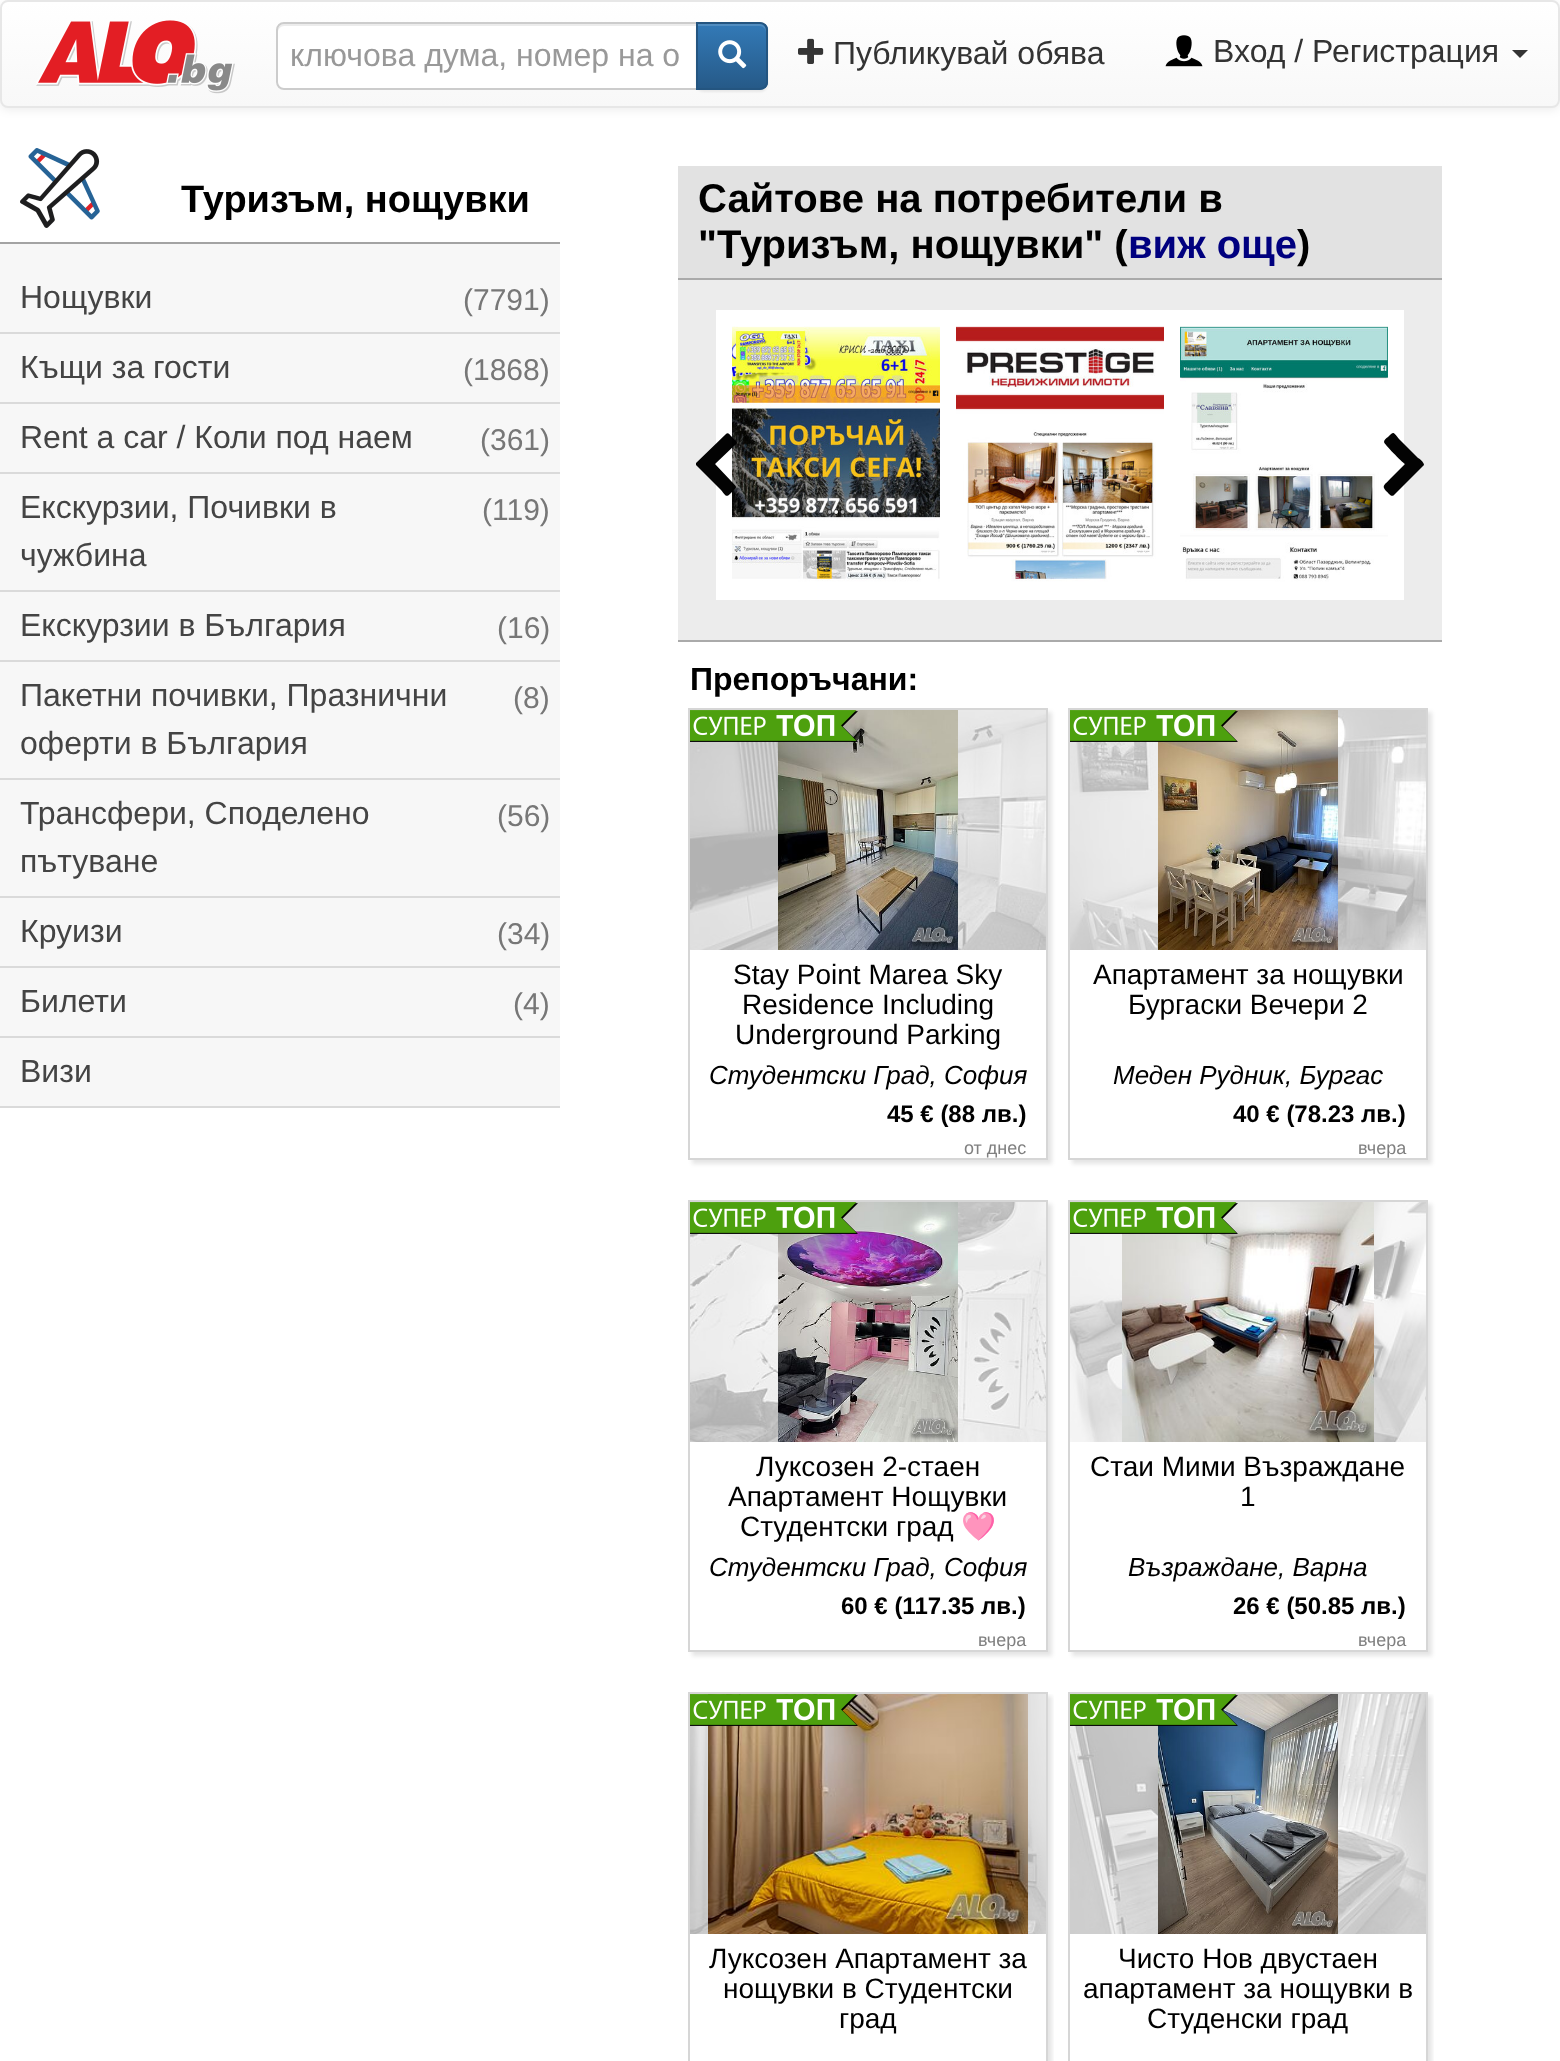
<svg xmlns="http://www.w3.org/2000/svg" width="1560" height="2061">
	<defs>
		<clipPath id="clip1"><rect x="0" y="0" width="1560" height="108" rx="8" /></clipPath>
		<linearGradient id="g1" gradientUnits="userSpaceOnUse" x1="780" y1="2" x2="780" y2="106"><stop offset="0" stop-color="#FFFFFF" /><stop offset="1" stop-color="#F8F8F8" /></linearGradient>
		<clipPath id="clip2"><path d="M696 22H760C764.5 22 768 25.5 768 30V82C768 86.5 764.5 90 760 90H696Z" /></clipPath>
		<linearGradient id="g2" gradientUnits="userSpaceOnUse" x1="732" y1="24" x2="732" y2="88"><stop offset="0" stop-color="#337AB7" /><stop offset="1" stop-color="#265A88" /></linearGradient>
		<clipPath id="clip3"><path d="M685 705H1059V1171H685ZM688 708H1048V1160H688Z" clip-rule="evenodd" /></clipPath>
		<clipPath id="clip4"><path d="M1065 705H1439V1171H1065ZM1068 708H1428V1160H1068Z" clip-rule="evenodd" /></clipPath>
		<clipPath id="clip5"><path d="M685 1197H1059V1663H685ZM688 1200H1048V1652H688Z" clip-rule="evenodd" /></clipPath>
		<clipPath id="clip6"><path d="M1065 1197H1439V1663H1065ZM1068 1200H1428V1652H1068Z" clip-rule="evenodd" /></clipPath>
		<clipPath id="clip7"><rect x="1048" y="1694" width="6" height="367" /></clipPath>
		<clipPath id="clip8"><rect x="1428" y="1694" width="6" height="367" /></clipPath>
	</defs>
	<rect width="100%" height="100%" fill="#FFFFFF" />
	<rect x="0" y="2" width="1560" height="108" rx="8" fill="#000000" fill-opacity="0.07" filter="blur(5px)" />
	<g clip-path="url(#clip1)">
		<rect x="0" y="2" width="1560" height="104" fill="url(#g1)" />
	</g>
	<rect x="1" y="1" width="1558" height="106" rx="7" fill="none" stroke="#E7E7E7" stroke-width="2" />
	<image x="36" y="20" width="199" height="74" href="assets/img1.png" />
	<path d="M284 22H698V90H284C279.5 90 276 86.5 276 82V30C276 25.5 279.5 22 284 22Z" fill="#FFFFFF" />
	<path d="M284 26H696V24H284C281 24 278 27 278 30V32C278 29 281 26 284 26Z" fill="#ECECEC" />
	<path d="M284 23H697V89H284C280 89 277 86 277 82V30C277 26 280 23 284 23Z" fill="none" stroke="#CCCCCC" stroke-width="2" />
	<text x="290" y="66" font-family="Liberation Sans" font-size="32" fill="#999999">ключова дума, номер на о</text>
	<rect x="696" y="24" width="72" height="68" rx="8" fill="#000000" fill-opacity="0.07" filter="blur(1px)" />
	<g clip-path="url(#clip2)">
		<rect x="698" y="24" width="70" height="64" fill="url(#g2)" />
	</g>
	<path d="M698 26H760C763 26 766 29 766 32V30C766 27 763 24 760 24H698Z" fill="#FFFFFF" fill-opacity="0.15" />
	<path d="M697 23H760C764 23 767 26 767 30V82C767 86 764 89 760 89H697Z" fill="none" stroke="#245580" stroke-width="2" />
	<image x="718" y="40" width="29" height="29" href="assets/img2.png" />
	<image x="798" y="38" width="26" height="26" href="assets/img3.png" />
	<text x="833" y="64" font-family="Liberation Sans" font-size="32" fill="#333333">Публикувай обява</text>
	<image x="1165" y="35" width="38" height="32" href="assets/img4.png" />
	<text x="1213" y="62" font-family="Liberation Sans" font-size="32" fill="#333333">Вход / Регистрация</text>
	<path d="M1512 50H1528L1520 58Z" fill="#333333" />
	<rect x="0" y="244" width="560" height="862" fill="#F7F7F7" />
	<rect x="0" y="242" width="560" height="2" fill="#A3A3A3" />
	<image x="20" y="148" width="80" height="80" href="assets/img5.png" />
	<text x="181" y="212" font-family="Liberation Sans" font-size="38" font-weight="700" fill="#000000">Туризъм, нощувки</text>
	<rect x="0" y="332" width="560" height="2" fill="#DADADA" />
	<text x="20" y="308" font-family="Liberation Sans" font-size="32" fill="#444444">Нощувки</text>
	<text x="463" y="310" font-family="Liberation Sans" font-size="30" fill="#777777">(7791)</text>
	<rect x="0" y="402" width="560" height="2" fill="#DADADA" />
	<text x="20" y="378" font-family="Liberation Sans" font-size="32" fill="#444444">Къщи за гости</text>
	<text x="463" y="380" font-family="Liberation Sans" font-size="30" fill="#777777">(1868)</text>
	<rect x="0" y="472" width="560" height="2" fill="#DADADA" />
	<text x="20" y="448" font-family="Liberation Sans" font-size="32" fill="#444444">Rent a car / Коли под наем</text>
	<text x="480" y="450" font-family="Liberation Sans" font-size="30" fill="#777777">(361)</text>
	<rect x="0" y="590" width="560" height="2" fill="#DADADA" />
	<g font-family="Liberation Sans" font-size="32" fill="#444444">
		<text x="20" y="518">Екскурзии, Почивки в</text>
		<text x="20" y="566">чужбина</text>
	</g>
	<text x="482" y="520" font-family="Liberation Sans" font-size="30" fill="#777777">(119)</text>
	<rect x="0" y="660" width="560" height="2" fill="#DADADA" />
	<text x="20" y="636" font-family="Liberation Sans" font-size="32" fill="#444444">Екскурзии в България</text>
	<text x="497" y="638" font-family="Liberation Sans" font-size="30" fill="#777777">(16)</text>
	<rect x="0" y="778" width="560" height="2" fill="#DADADA" />
	<g font-family="Liberation Sans" font-size="32" fill="#444444">
		<text x="20" y="706">Пакетни почивки, Празнични</text>
		<text x="20" y="754">оферти в България</text>
	</g>
	<text x="513" y="708" font-family="Liberation Sans" font-size="30" fill="#777777">(8)</text>
	<rect x="0" y="896" width="560" height="2" fill="#DADADA" />
	<g font-family="Liberation Sans" font-size="32" fill="#444444">
		<text x="20" y="824">Трансфери, Споделено</text>
		<text x="20" y="872">пътуване</text>
	</g>
	<text x="497" y="826" font-family="Liberation Sans" font-size="30" fill="#777777">(56)</text>
	<rect x="0" y="966" width="560" height="2" fill="#DADADA" />
	<text x="20" y="942" font-family="Liberation Sans" font-size="32" fill="#444444">Круизи</text>
	<text x="497" y="944" font-family="Liberation Sans" font-size="30" fill="#777777">(34)</text>
	<rect x="0" y="1036" width="560" height="2" fill="#DADADA" />
	<text x="20" y="1012" font-family="Liberation Sans" font-size="32" fill="#444444">Билети</text>
	<text x="513" y="1014" font-family="Liberation Sans" font-size="30" fill="#777777">(4)</text>
	<rect x="0" y="1106" width="560" height="2" fill="#DADADA" />
	<text x="20" y="1082" font-family="Liberation Sans" font-size="32" fill="#444444">Визи</text>
	<rect x="678" y="166" width="764" height="112" fill="#E2E2E2" />
	<rect x="678" y="278" width="764" height="2" fill="#AAAAAA" />
	<g font-family="Liberation Sans" font-size="40" font-weight="700" fill="#000000">
		<text x="698" y="212">Сайтове на потребители в</text>
		<text x="698" y="258">"Туризъм, нощувки" (</text>
	</g>
	<text x="1128" y="258" font-family="Liberation Sans" font-size="40" font-weight="700" fill="#00007F">виж още</text>
	<text x="1297" y="258" font-family="Liberation Sans" font-size="40" font-weight="700" fill="#000000">)</text>
	<rect x="678" y="280" width="764" height="360" fill="#ECECEC" />
	<rect x="678" y="640" width="764" height="2" fill="#AAAAAA" />
	<rect x="720" y="314" width="680" height="282" fill="none" stroke="#FFFFFF" stroke-width="8" />
	<rect x="728" y="322" width="216" height="266" fill="none" stroke="#FFFFFF" stroke-width="8" />
	<image x="732" y="326" width="208" height="258" href="assets/img6.png" />
	<rect x="952" y="322" width="216" height="266" fill="none" stroke="#FFFFFF" stroke-width="8" />
	<image x="956" y="326" width="208" height="258" href="assets/img7.png" />
	<rect x="1176" y="322" width="216" height="266" fill="none" stroke="#FFFFFF" stroke-width="8" />
	<image x="1180" y="326" width="208" height="258" href="assets/img8.png" />
	<path d="M736 444L715 464L732 482C738 488 737 487 731 493C726 498 726 496 721 490L696 465V463L726 434C728 432 730 435 731 436L736 441C737 442 737 443 736 444Z" fill="#000000" fill-opacity="0.99" />
	<path d="M1423 466L1394 495C1391 498 1388 492 1386 491C1381 485 1385 485 1391 478L1405 464C1402 462 1384 444 1384 442C1384 440 1386 438 1388 437C1394 431 1393 432 1399 439L1418 458C1419 458 1424 462 1424 465Z" fill="#000000" fill-opacity="0.99" />
	<text x="690" y="690" font-family="Liberation Sans" font-size="32" font-weight="700" fill="#000000">Препоръчани:</text>
	<g clip-path="url(#clip3)">
		<rect x="692" y="712" width="360" height="452" fill="#000000" fill-opacity="0.1" filter="blur(2px)" />
	</g>
	<rect x="689" y="709" width="358" height="450" fill="none" stroke="#D6D6D6" stroke-width="2" />
	<image x="690" y="710" width="356" height="240" href="assets/img9.png" />
	<image x="778" y="710" width="180" height="240" href="assets/img10.png" />
	<image x="690" y="710" width="168" height="32" href="assets/img11.png" />
	<g font-family="Liberation Sans" font-size="28" fill="#000000">
		<text x="733" y="984">Stay Point Marea Sky</text>
		<text x="742" y="1014">Residence Including</text>
		<text x="735" y="1044">Underground Parking</text>
	</g>
	<text x="709" y="1084" font-family="Liberation Sans" font-size="26" font-style="italic" fill="#000000">Студентски Град, София</text>
	<text x="887" y="1122" font-family="Liberation Sans" font-size="24" font-weight="700" fill="#000000">45 € (88 лв.)</text>
	<text x="964" y="1154" font-family="Liberation Sans" font-size="18" fill="#808080">от днес</text>
	<g clip-path="url(#clip4)">
		<rect x="1072" y="712" width="360" height="452" fill="#000000" fill-opacity="0.1" filter="blur(2px)" />
	</g>
	<rect x="1069" y="709" width="358" height="450" fill="none" stroke="#D6D6D6" stroke-width="2" />
	<image x="1070" y="710" width="356" height="240" href="assets/img12.png" />
	<image x="1158" y="710" width="180" height="240" href="assets/img13.png" />
	<image x="1070" y="710" width="168" height="32" href="assets/img14.png" />
	<g font-family="Liberation Sans" font-size="28" fill="#000000">
		<text x="1093" y="984">Апартамент за нощувки</text>
		<text x="1128" y="1014">Бургаски Вечери 2</text>
	</g>
	<text x="1113" y="1084" font-family="Liberation Sans" font-size="26" font-style="italic" fill="#000000">Меден Рудник, Бургас</text>
	<text x="1233" y="1122" font-family="Liberation Sans" font-size="24" font-weight="700" fill="#000000">40 € (78.23 лв.)</text>
	<text x="1358" y="1154" font-family="Liberation Sans" font-size="18" fill="#808080">вчера</text>
	<g clip-path="url(#clip5)">
		<rect x="692" y="1204" width="360" height="452" fill="#000000" fill-opacity="0.1" filter="blur(2px)" />
	</g>
	<rect x="689" y="1201" width="358" height="450" fill="none" stroke="#D6D6D6" stroke-width="2" />
	<image x="690" y="1202" width="356" height="240" href="assets/img15.png" />
	<image x="778" y="1202" width="180" height="240" href="assets/img16.png" />
	<image x="690" y="1202" width="168" height="32" href="assets/img17.png" />
	<g font-family="Liberation Sans" font-size="28" fill="#000000">
		<text x="756" y="1476">Луксозен 2-стаен</text>
		<text x="728" y="1506">Апартамент Нощувки</text>
		<text x="740" y="1536">Студентски град</text>
	</g>
	<text x="961" y="1536" font-family="Noto Color Emoji" font-size="28" fill="#000000">🩷</text>
	<text x="709" y="1576" font-family="Liberation Sans" font-size="26" font-style="italic" fill="#000000">Студентски Град, София</text>
	<text x="841" y="1614" font-family="Liberation Sans" font-size="24" font-weight="700" fill="#000000">60 € (117.35 лв.)</text>
	<text x="978" y="1646" font-family="Liberation Sans" font-size="18" fill="#808080">вчера</text>
	<g clip-path="url(#clip6)">
		<rect x="1072" y="1204" width="360" height="452" fill="#000000" fill-opacity="0.1" filter="blur(2px)" />
	</g>
	<rect x="1069" y="1201" width="358" height="450" fill="none" stroke="#D6D6D6" stroke-width="2" />
	<image x="1070" y="1202" width="356" height="240" href="assets/img18.png" />
	<image x="1122" y="1202" width="252" height="240" href="assets/img19.png" />
	<image x="1070" y="1202" width="168" height="32" href="assets/img20.png" />
	<g font-family="Liberation Sans" font-size="28" fill="#000000">
		<text x="1090" y="1476">Стаи Мими Възраждане</text>
		<text x="1240" y="1506">1</text>
	</g>
	<text x="1128" y="1576" font-family="Liberation Sans" font-size="26" font-style="italic" fill="#000000">Възраждане, Варна</text>
	<text x="1233" y="1614" font-family="Liberation Sans" font-size="24" font-weight="700" fill="#000000">26 € (50.85 лв.)</text>
	<text x="1358" y="1646" font-family="Liberation Sans" font-size="18" fill="#808080">вчера</text>
	<g clip-path="url(#clip7)">
		<rect x="692" y="1696" width="360" height="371" fill="#000000" fill-opacity="0.1" filter="blur(2px)" />
	</g>
	<rect x="689" y="1693" width="358" height="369" fill="none" stroke="#D6D6D6" stroke-width="2" />
	<image x="690" y="1694" width="356" height="240" href="assets/img21.png" />
	<image x="708" y="1694" width="320" height="240" href="assets/img22.png" />
	<image x="690" y="1694" width="168" height="32" href="assets/img23.png" />
	<g font-family="Liberation Sans" font-size="28" fill="#000000">
		<text x="709" y="1968">Луксозен Апартамент за</text>
		<text x="723" y="1998">нощувки в Студентски</text>
		<text x="839" y="2028">град</text>
	</g>
	<g clip-path="url(#clip8)">
		<rect x="1072" y="1696" width="360" height="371" fill="#000000" fill-opacity="0.1" filter="blur(2px)" />
	</g>
	<rect x="1069" y="1693" width="358" height="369" fill="none" stroke="#D6D6D6" stroke-width="2" />
	<image x="1070" y="1694" width="356" height="240" href="assets/img24.png" />
	<image x="1158" y="1694" width="180" height="240" href="assets/img25.png" />
	<image x="1070" y="1694" width="168" height="32" href="assets/img26.png" />
	<g font-family="Liberation Sans" font-size="28" fill="#000000">
		<text x="1118" y="1968">Чисто Нов двустаен</text>
		<text x="1083" y="1998">апартамент за нощувки в</text>
		<text x="1147" y="2028">Студенски град</text>
	</g>
</svg>
